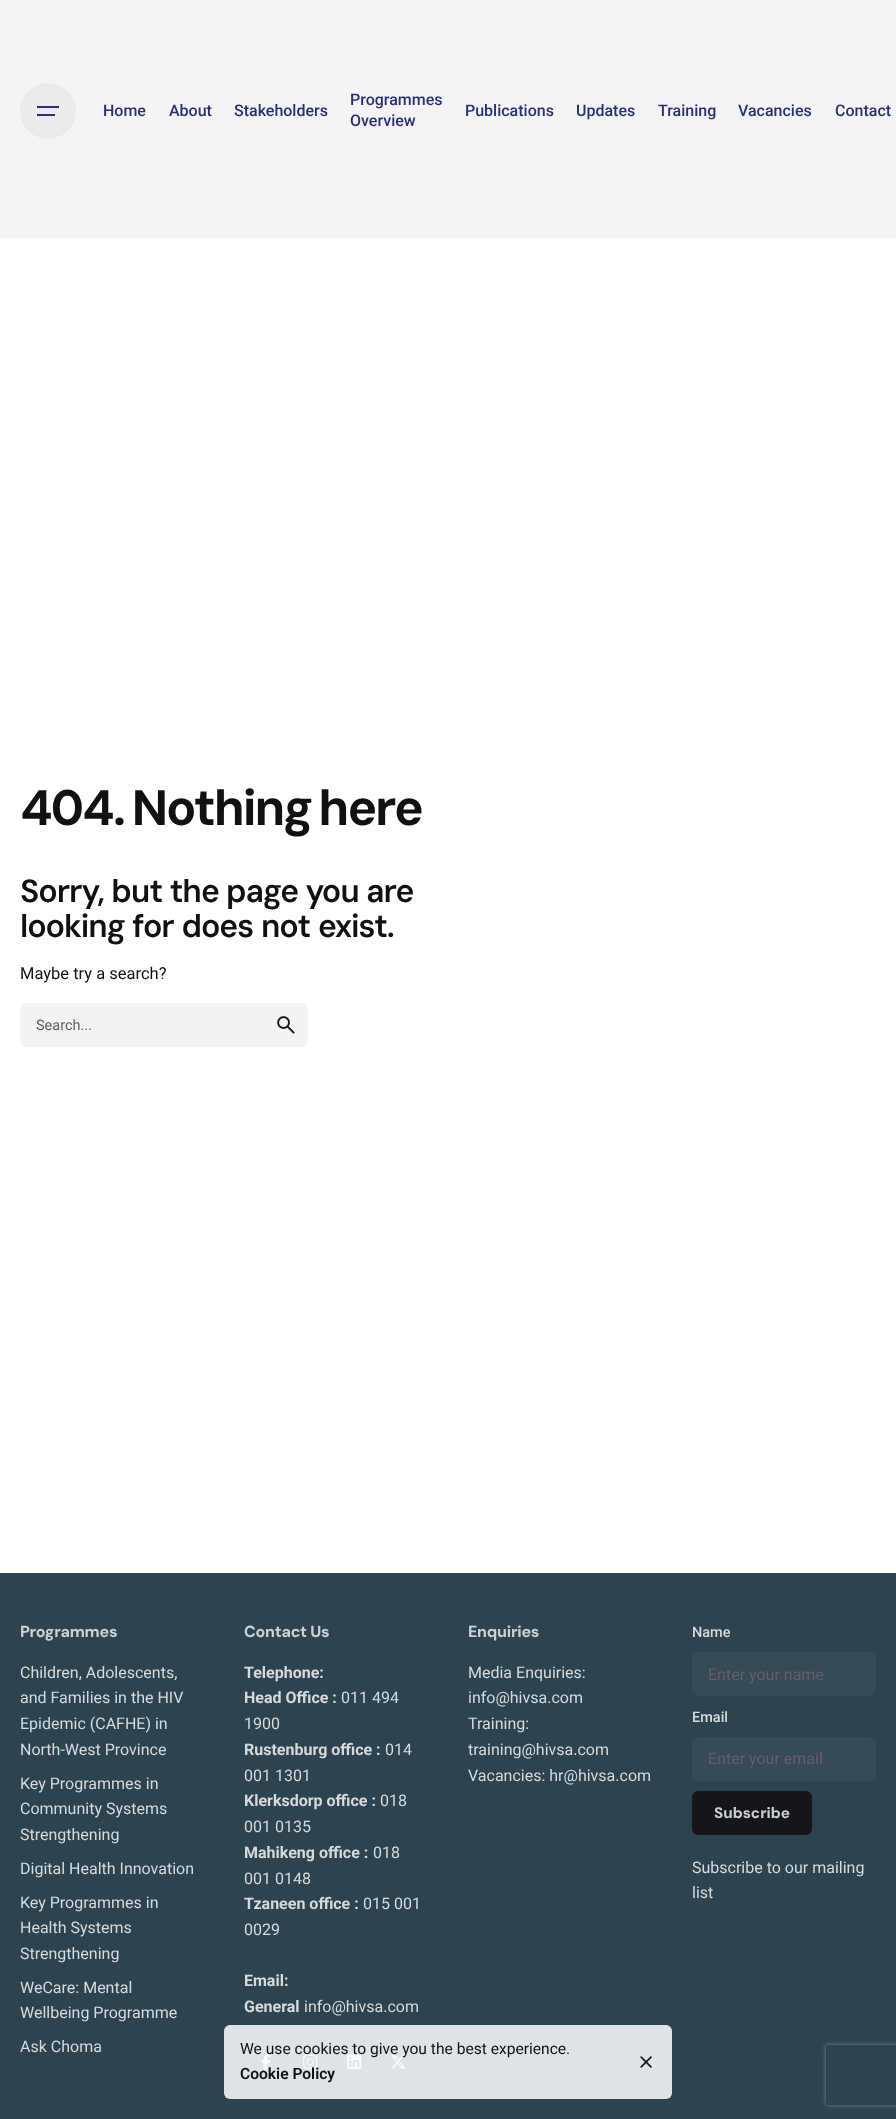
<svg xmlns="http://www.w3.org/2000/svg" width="896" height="2119">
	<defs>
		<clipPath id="clip1"><path d="M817 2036H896V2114H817ZM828 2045H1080C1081 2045 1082 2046 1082 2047V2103C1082 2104 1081 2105 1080 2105H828C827 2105 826 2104 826 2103V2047C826 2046 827 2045 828 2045Z" clip-rule="evenodd" /></clipPath>
	</defs>
	<rect width="100%" height="100%" fill="#FFFFFF" />
	<rect x="0" y="0" width="896" height="238" fill="#F4F4F4" />
	<circle cx="48" cy="111" r="28" fill="#EBEBEB" />
	<rect x="37" y="106" width="22" height="2" fill="#2A3076" />
	<rect x="37" y="114" width="18" height="2" fill="#2A3076" />
	<g font-family="Roboto" font-size="16" font-weight="500" fill="#2A3076">
		<text x="103" y="116">Home</text>
		<text x="169" y="116">About</text>
		<text x="234" y="116">Stakeholders</text>
		<text x="350" y="105">Programmes</text>
		<text x="350" y="126">Overview</text>
		<text x="465" y="116">Publications</text>
		<text x="576" y="116">Updates</text>
		<text x="658" y="116">Training</text>
		<text x="738" y="116">Vacancies</text>
		<text x="835" y="116">Contact</text>
	</g>
	<text x="20" y="825" word-spacing="-2" font-family="DM Sans" font-size="49.75" font-weight="700" letter-spacing="-2.25" fill="#111013">404. Nothing here</text>
	<g font-family="DM Sans" font-size="32" font-weight="600" letter-spacing="-1.1" fill="#111013">
		<text x="20" y="902" word-spacing="0.5">Sorry, but the page you are</text>
		<text x="20" y="937" word-spacing="1">looking for does not exist.</text>
	</g>
	<text x="20" y="979" font-family="Roboto" font-size="16.5" fill="#111013">Maybe try a search?</text>
	<rect x="20" y="1003" width="288" height="44" rx="6" fill="#F3F3F3" />
	<text x="36" y="1030" font-family="Roboto" font-size="14.5" fill="#635D6E">Search...</text>
	<image x="277" y="1016" width="18" height="18" href="assets/img1.png" />
	<rect x="0" y="1573" width="896" height="546" fill="#2D4450" />
	<text x="20" y="1637" font-family="DM Sans" font-size="16" font-weight="800" letter-spacing="-0.25" fill="#CBD0D3">Programmes</text>
	<g font-family="Roboto" font-size="16" fill="#D5DADC">
		<text x="20" y="1678">Children, Adolescents,</text>
		<text x="20" y="1703">and Families in the HIV</text>
		<text x="20" y="1729">Epidemic (CAFHE) in</text>
		<text x="20" y="1755">North-West Province</text>
		<text x="20" y="1789">Key Programmes in</text>
		<text x="20" y="1814">Community Systems</text>
		<text x="20" y="1840">Strengthening</text>
		<text x="20" y="1874">Digital Health Innovation</text>
		<text x="20" y="1908">Key Programmes in</text>
		<text x="20" y="1933">Health Systems</text>
		<text x="20" y="1959">Strengthening</text>
		<text x="20" y="1993">WeCare: Mental</text>
		<text x="20" y="2018">Wellbeing Programme</text>
		<text x="20" y="2052">Ask Choma</text>
	</g>
	<text x="244" y="1637" font-family="DM Sans" font-size="16" font-weight="800" letter-spacing="-0.25" fill="#CBD0D3">Contact Us</text>
	<g font-family="Roboto" font-size="16" font-weight="700" fill="#D5DADC">
		<text x="244" y="1678">Telephone:</text>
		<text x="244" y="1703">Head Office :</text>
	</g>
	<g font-family="Roboto" font-size="16" fill="#D5DADC">
		<text x="341" y="1703">011 494</text>
		<text x="244" y="1729">1900</text>
	</g>
	<text x="244" y="1755" font-family="Roboto" font-size="16" font-weight="700" fill="#D5DADC">Rustenburg office :</text>
	<g font-family="Roboto" font-size="16" fill="#D5DADC">
		<text x="385" y="1755">014</text>
		<text x="244" y="1781">001 1301</text>
	</g>
	<text x="244" y="1806" font-family="Roboto" font-size="16" font-weight="700" fill="#D5DADC">Klerksdorp office :</text>
	<g font-family="Roboto" font-size="16" fill="#D5DADC">
		<text x="380" y="1806">018</text>
		<text x="244" y="1832">001 0135</text>
	</g>
	<text x="244" y="1858" font-family="Roboto" font-size="16" font-weight="700" fill="#D5DADC">Mahikeng office :</text>
	<g font-family="Roboto" font-size="16" fill="#D5DADC">
		<text x="373" y="1858">018</text>
		<text x="244" y="1884">001 0148</text>
	</g>
	<text x="244" y="1909" font-family="Roboto" font-size="16" font-weight="700" fill="#D5DADC">Tzaneen office :</text>
	<g font-family="Roboto" font-size="16" fill="#D5DADC">
		<text x="363" y="1909">015 001</text>
		<text x="244" y="1935">0029</text>
	</g>
	<g font-family="Roboto" font-size="16" font-weight="700" fill="#D5DADC">
		<text x="244" y="1986">Email:</text>
		<text x="244" y="2012">General</text>
	</g>
	<text x="304" y="2012" font-family="Roboto" font-size="16" fill="#D5DADC">info@hivsa.com</text>
	<image x="261" y="2053" width="10" height="18" href="assets/img2.png" />
	<image x="303" y="2054" width="15" height="15" href="assets/img3.png" />
	<image x="347" y="2054" width="15" height="15" href="assets/img4.png" />
	<image x="391" y="2055" width="15" height="14" href="assets/img5.png" />
	<text x="468" y="1637" font-family="DM Sans" font-size="16" font-weight="800" letter-spacing="-0.25" fill="#CBD0D3">Enquiries</text>
	<g font-family="Roboto" font-size="16" fill="#D5DADC">
		<text x="468" y="1678">Media Enquiries:</text>
		<text x="468" y="1703">info@hivsa.com</text>
		<text x="468" y="1729">Training:</text>
		<text x="468" y="1755">training@hivsa.com</text>
		<text x="468" y="1781">Vacancies: hr@hivsa.com</text>
	</g>
	<text x="692" y="1637" font-family="Roboto" font-size="14.5" font-weight="500" fill="#D5DADC">Name</text>
	<rect x="692" y="1652" width="184" height="44" rx="6" fill="#364B56" />
	<text x="708" y="1680" font-family="Roboto" font-size="16" fill="#635D6E">Enter your name</text>
	<text x="692" y="1722" font-family="Roboto" font-size="14.5" font-weight="500" fill="#D5DADC">Email</text>
	<rect x="692" y="1737" width="184" height="44" rx="6" fill="#364B56" />
	<text x="708" y="1764" font-family="Roboto" font-size="16" fill="#635D6E">Enter your email</text>
	<rect x="692" y="1791" width="120" height="44" rx="6" fill="#161518" />
	<text x="714" y="1818" font-family="'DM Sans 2'" font-size="15.25" font-weight="800" fill="#CBD0D3">Subscribe</text>
	<g font-family="Roboto" font-size="16" fill="#D5DADC">
		<text x="692" y="1873">Subscribe to our mailing</text>
		<text x="692" y="1898">list</text>
	</g>
	<rect x="224" y="2025" width="448" height="74" rx="6" fill="#FFFFFF" fill-opacity="0.85" />
	<text x="240" y="2054" font-family="Roboto" font-size="15.6" fill="#111013">We use cookies to give you the best experience.</text>
	<text x="240" y="2079" font-family="Roboto" font-size="15.6" font-weight="600" fill="#111013">Cookie Policy</text>
	<image x="640" y="2056" width="12" height="12" href="assets/img6.png" />
	<g clip-path="url(#clip1)">
		<rect x="826" y="2045" width="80" height="60" rx="2" fill="#808080" filter="blur(2.5px)" />
	</g>
</svg>
